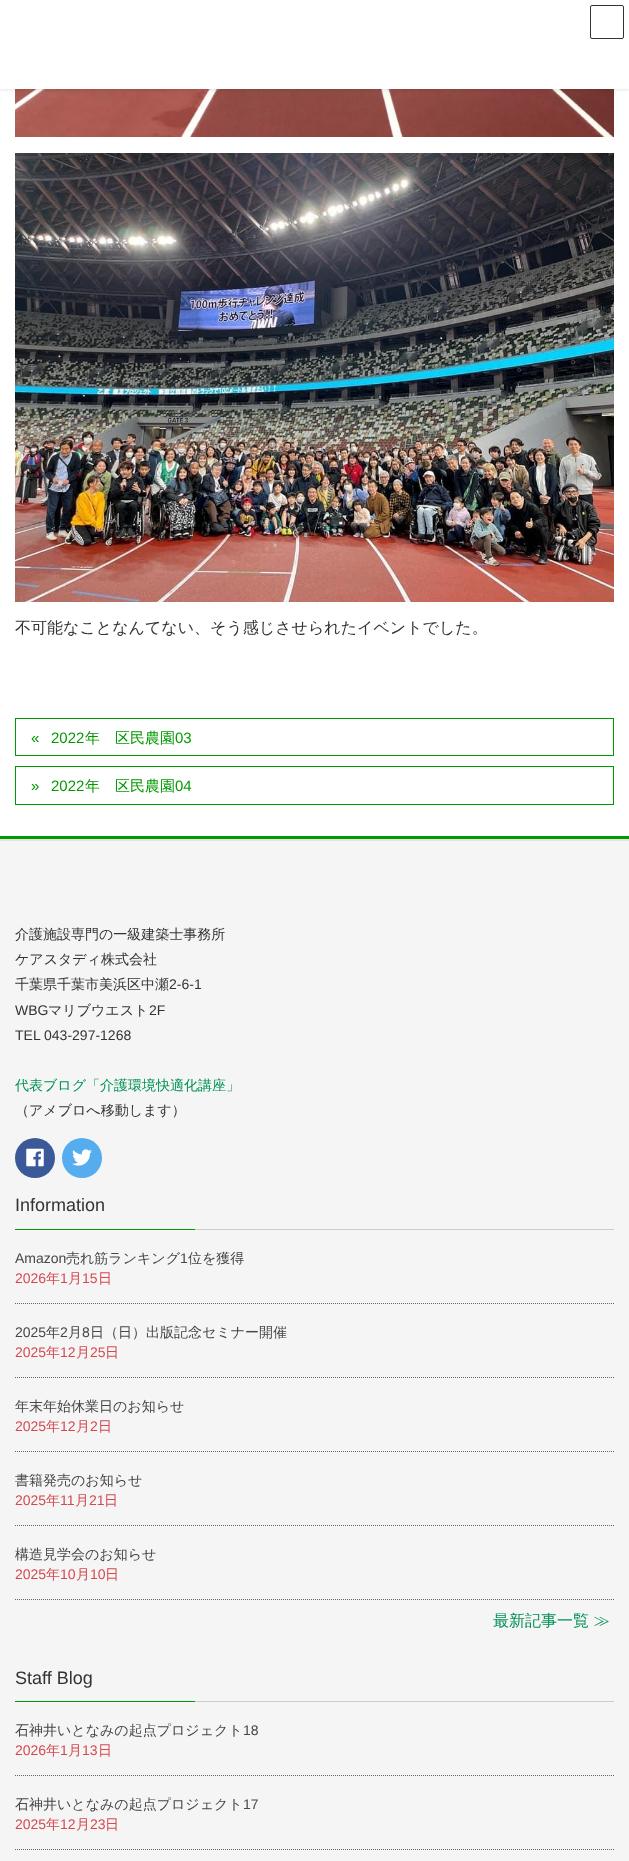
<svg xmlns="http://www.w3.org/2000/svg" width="629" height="1861">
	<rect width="100%" height="100%" fill="#FFFFFF" />
	<image x="15" y="89" width="599" height="48" href="assets/img1.png" />
	<rect x="0" y="1" width="629" height="89" fill="#000000" fill-opacity="0.1" filter="blur(1.5px)" />
	<rect x="0" y="0" width="629" height="89" fill="#FFFFFF" />
	<rect x="590.5" y="5.5" width="33" height="33" rx="1.5" fill="none" stroke="#333333" />
	<image x="15" y="153" width="599" height="449" href="assets/img2.png" />
	<text x="15" y="633" font-family="WenQuanYi Zen Hei" font-size="16" font-weight="500" fill="#333333">不可能なことなんてない、そう感じさせられたイベントでした。</text>
	<rect x="15.5" y="718.5" width="598" height="37" fill="none" stroke="#009900" />
	<g font-family="Liberation Sans" font-size="15" fill="#009900">
		<text x="31" y="743">«</text>
		<text x="51" y="743">2022</text>
	</g>
	<text x="85" y="743" font-family="WenQuanYi Zen Hei" font-size="15" font-weight="500" fill="#009900">年　区民農園</text>
	<text x="175" y="743" font-family="Liberation Sans" font-size="15" fill="#009900">03</text>
	<rect x="15.5" y="766.5" width="598" height="38" fill="none" stroke="#009900" />
	<g font-family="Liberation Sans" font-size="15" fill="#009900">
		<text x="31" y="791">»</text>
		<text x="51" y="791">2022</text>
	</g>
	<text x="85" y="791" font-family="WenQuanYi Zen Hei" font-size="15" font-weight="500" fill="#009900">年　区民農園</text>
	<text x="175" y="791" font-family="Liberation Sans" font-size="15" fill="#009900">04</text>
	<rect x="0" y="841" width="629" height="1020" fill="#F5F5F5" />
	<rect x="0" y="836" width="629" height="3" fill="#009900" />
	<rect x="0" y="839" width="629" height="2" fill="#E5E5E5" />
	<g font-family="WenQuanYi Zen Hei" font-size="14" font-weight="500" fill="#333333">
		<text x="15" y="939">介護施設専門の一級建築士事務所</text>
		<text x="15" y="964">ケアスタディ株式会社</text>
		<text x="15" y="989">千葉県千葉市美浜区中瀬</text>
	</g>
	<g font-family="Liberation Sans" font-size="14" fill="#333333">
		<text x="169" y="989">2-6-1</text>
		<text x="15" y="1015">WBG</text>
	</g>
	<text x="48" y="1015" font-family="WenQuanYi Zen Hei" font-size="14" font-weight="500" fill="#333333">マリブウエスト</text>
	<g font-family="Liberation Sans" font-size="14" fill="#333333">
		<text x="149" y="1015">2F</text>
		<text x="15" y="1040">TEL 043-297-1268</text>
	</g>
	<text x="15" y="1090" font-family="WenQuanYi Zen Hei" font-size="14" font-weight="500" fill="#009155">代表ブログ「介護環境快適化講座」</text>
	<text x="15" y="1115" font-family="WenQuanYi Zen Hei" font-size="14" font-weight="500" fill="#333333">（アメブロへ移動します）</text>
	<circle cx="35" cy="1158" r="20" fill="#3B5998" />
	<image x="26" y="1148" width="18" height="19" href="assets/img3.png" />
	<circle cx="82" cy="1158" r="20" fill="#55ACEE" />
	<image x="72" y="1149" width="20" height="17" href="assets/img4.png" />
	<rect x="195" y="1229" width="419" height="1" fill="#CCCCCC" />
	<text x="15" y="1211" font-family="Liberation Sans" font-size="18" fill="#333333">Information</text>
	<rect x="15" y="1229" width="180" height="1" fill="#009900" />
	<path d="M15 1303.5H614" fill="none" stroke="#666666" stroke-dasharray="1 1" />
	<text x="15" y="1263" font-family="Liberation Sans" font-size="14" fill="#464646">Amazon</text>
	<text x="66" y="1263" font-family="WenQuanYi Zen Hei" font-size="14" font-weight="500" fill="#464646">売れ筋ランキング</text>
	<text x="180" y="1263" font-family="Liberation Sans" font-size="14" fill="#464646">1</text>
	<text x="188" y="1263" font-family="WenQuanYi Zen Hei" font-size="14" font-weight="500" fill="#464646">位を獲得</text>
	<text x="15" y="1283" font-family="Liberation Sans" font-size="14" fill="#D44950">2026</text>
	<text x="46" y="1283" font-family="WenQuanYi Zen Hei" font-size="14" font-weight="500" fill="#D44950">年</text>
	<text x="60" y="1283" font-family="Liberation Sans" font-size="14" fill="#D44950">1</text>
	<text x="68" y="1283" font-family="WenQuanYi Zen Hei" font-size="14" font-weight="500" fill="#D44950">月</text>
	<text x="82" y="1283" font-family="Liberation Sans" font-size="14" fill="#D44950">15</text>
	<text x="98" y="1283" font-family="WenQuanYi Zen Hei" font-size="14" font-weight="500" fill="#D44950">日</text>
	<path d="M15 1377.5H614" fill="none" stroke="#666666" stroke-dasharray="1 1" />
	<text x="15" y="1337" font-family="Liberation Sans" font-size="14" fill="#464646">2025</text>
	<text x="46" y="1337" font-family="WenQuanYi Zen Hei" font-size="14" font-weight="500" fill="#464646">年</text>
	<text x="60" y="1337" font-family="Liberation Sans" font-size="14" fill="#464646">2</text>
	<text x="68" y="1337" font-family="WenQuanYi Zen Hei" font-size="14" font-weight="500" fill="#464646">月</text>
	<text x="82" y="1337" font-family="Liberation Sans" font-size="14" fill="#464646">8</text>
	<text x="90" y="1337" font-family="WenQuanYi Zen Hei" font-size="14" font-weight="500" fill="#464646">日（日）出版記念セミナー開催</text>
	<text x="15" y="1357" font-family="Liberation Sans" font-size="14" fill="#D44950">2025</text>
	<text x="46" y="1357" font-family="WenQuanYi Zen Hei" font-size="14" font-weight="500" fill="#D44950">年</text>
	<text x="60" y="1357" font-family="Liberation Sans" font-size="14" fill="#D44950">12</text>
	<text x="76" y="1357" font-family="WenQuanYi Zen Hei" font-size="14" font-weight="500" fill="#D44950">月</text>
	<text x="90" y="1357" font-family="Liberation Sans" font-size="14" fill="#D44950">25</text>
	<text x="105" y="1357" font-family="WenQuanYi Zen Hei" font-size="14" font-weight="500" fill="#D44950">日</text>
	<path d="M15 1451.5H614" fill="none" stroke="#666666" stroke-dasharray="1 1" />
	<text x="15" y="1411" font-family="WenQuanYi Zen Hei" font-size="14" font-weight="500" fill="#464646">年末年始休業日のお知らせ</text>
	<text x="15" y="1431" font-family="Liberation Sans" font-size="14" fill="#D44950">2025</text>
	<text x="46" y="1431" font-family="WenQuanYi Zen Hei" font-size="14" font-weight="500" fill="#D44950">年</text>
	<text x="60" y="1431" font-family="Liberation Sans" font-size="14" fill="#D44950">12</text>
	<text x="76" y="1431" font-family="WenQuanYi Zen Hei" font-size="14" font-weight="500" fill="#D44950">月</text>
	<text x="90" y="1431" font-family="Liberation Sans" font-size="14" fill="#D44950">2</text>
	<text x="98" y="1431" font-family="WenQuanYi Zen Hei" font-size="14" font-weight="500" fill="#D44950">日</text>
	<path d="M15 1525.5H614" fill="none" stroke="#666666" stroke-dasharray="1 1" />
	<text x="15" y="1485" font-family="WenQuanYi Zen Hei" font-size="14" font-weight="500" fill="#464646">書籍発売のお知らせ</text>
	<text x="15" y="1505" font-family="Liberation Sans" font-size="14" fill="#D44950">2025</text>
	<text x="46" y="1505" font-family="WenQuanYi Zen Hei" font-size="14" font-weight="500" fill="#D44950">年</text>
	<text x="60" y="1505" font-family="Liberation Sans" font-size="14" fill="#D44950">11</text>
	<text x="75" y="1505" font-family="WenQuanYi Zen Hei" font-size="14" font-weight="500" fill="#D44950">月</text>
	<text x="89" y="1505" font-family="Liberation Sans" font-size="14" fill="#D44950">21</text>
	<text x="104" y="1505" font-family="WenQuanYi Zen Hei" font-size="14" font-weight="500" fill="#D44950">日</text>
	<path d="M15 1599.5H614" fill="none" stroke="#666666" stroke-dasharray="1 1" />
	<text x="15" y="1559" font-family="WenQuanYi Zen Hei" font-size="14" font-weight="500" fill="#464646">構造見学会のお知らせ</text>
	<text x="15" y="1579" font-family="Liberation Sans" font-size="14" fill="#D44950">2025</text>
	<text x="46" y="1579" font-family="WenQuanYi Zen Hei" font-size="14" font-weight="500" fill="#D44950">年</text>
	<text x="60" y="1579" font-family="Liberation Sans" font-size="14" fill="#D44950">10</text>
	<text x="76" y="1579" font-family="WenQuanYi Zen Hei" font-size="14" font-weight="500" fill="#D44950">月</text>
	<text x="90" y="1579" font-family="Liberation Sans" font-size="14" fill="#D44950">10</text>
	<text x="105" y="1579" font-family="WenQuanYi Zen Hei" font-size="14" font-weight="500" fill="#D44950">日</text>
	<text x="493" y="1626" font-family="WenQuanYi Zen Hei" font-size="16" font-weight="500" fill="#009155">最新記事一覧 ≫</text>
	<rect x="195" y="1701" width="419" height="1" fill="#CCCCCC" />
	<text x="15" y="1684" font-family="Liberation Sans" font-size="18" fill="#333333">Staff Blog</text>
	<rect x="15" y="1701" width="180" height="1" fill="#009900" />
	<path d="M15 1775.5H614" fill="none" stroke="#666666" stroke-dasharray="1 1" />
	<text x="15" y="1735" font-family="WenQuanYi Zen Hei" font-size="14" font-weight="500" fill="#464646">石神井いとなみの起点プロジェクト</text>
	<text x="243" y="1735" font-family="Liberation Sans" font-size="14" fill="#464646">18</text>
	<text x="15" y="1755" font-family="Liberation Sans" font-size="14" fill="#D44950">2026</text>
	<text x="46" y="1755" font-family="WenQuanYi Zen Hei" font-size="14" font-weight="500" fill="#D44950">年</text>
	<text x="60" y="1755" font-family="Liberation Sans" font-size="14" fill="#D44950">1</text>
	<text x="68" y="1755" font-family="WenQuanYi Zen Hei" font-size="14" font-weight="500" fill="#D44950">月</text>
	<text x="82" y="1755" font-family="Liberation Sans" font-size="14" fill="#D44950">13</text>
	<text x="98" y="1755" font-family="WenQuanYi Zen Hei" font-size="14" font-weight="500" fill="#D44950">日</text>
	<path d="M15 1849.5H614" fill="none" stroke="#666666" stroke-dasharray="1 1" />
	<text x="15" y="1809" font-family="WenQuanYi Zen Hei" font-size="14" font-weight="500" fill="#464646">石神井いとなみの起点プロジェクト</text>
	<text x="243" y="1809" font-family="Liberation Sans" font-size="14" fill="#464646">17</text>
	<text x="15" y="1829" font-family="Liberation Sans" font-size="14" fill="#D44950">2025</text>
	<text x="46" y="1829" font-family="WenQuanYi Zen Hei" font-size="14" font-weight="500" fill="#D44950">年</text>
	<text x="60" y="1829" font-family="Liberation Sans" font-size="14" fill="#D44950">12</text>
	<text x="76" y="1829" font-family="WenQuanYi Zen Hei" font-size="14" font-weight="500" fill="#D44950">月</text>
	<text x="90" y="1829" font-family="Liberation Sans" font-size="14" fill="#D44950">23</text>
	<text x="105" y="1829" font-family="WenQuanYi Zen Hei" font-size="14" font-weight="500" fill="#D44950">日</text>
</svg>
